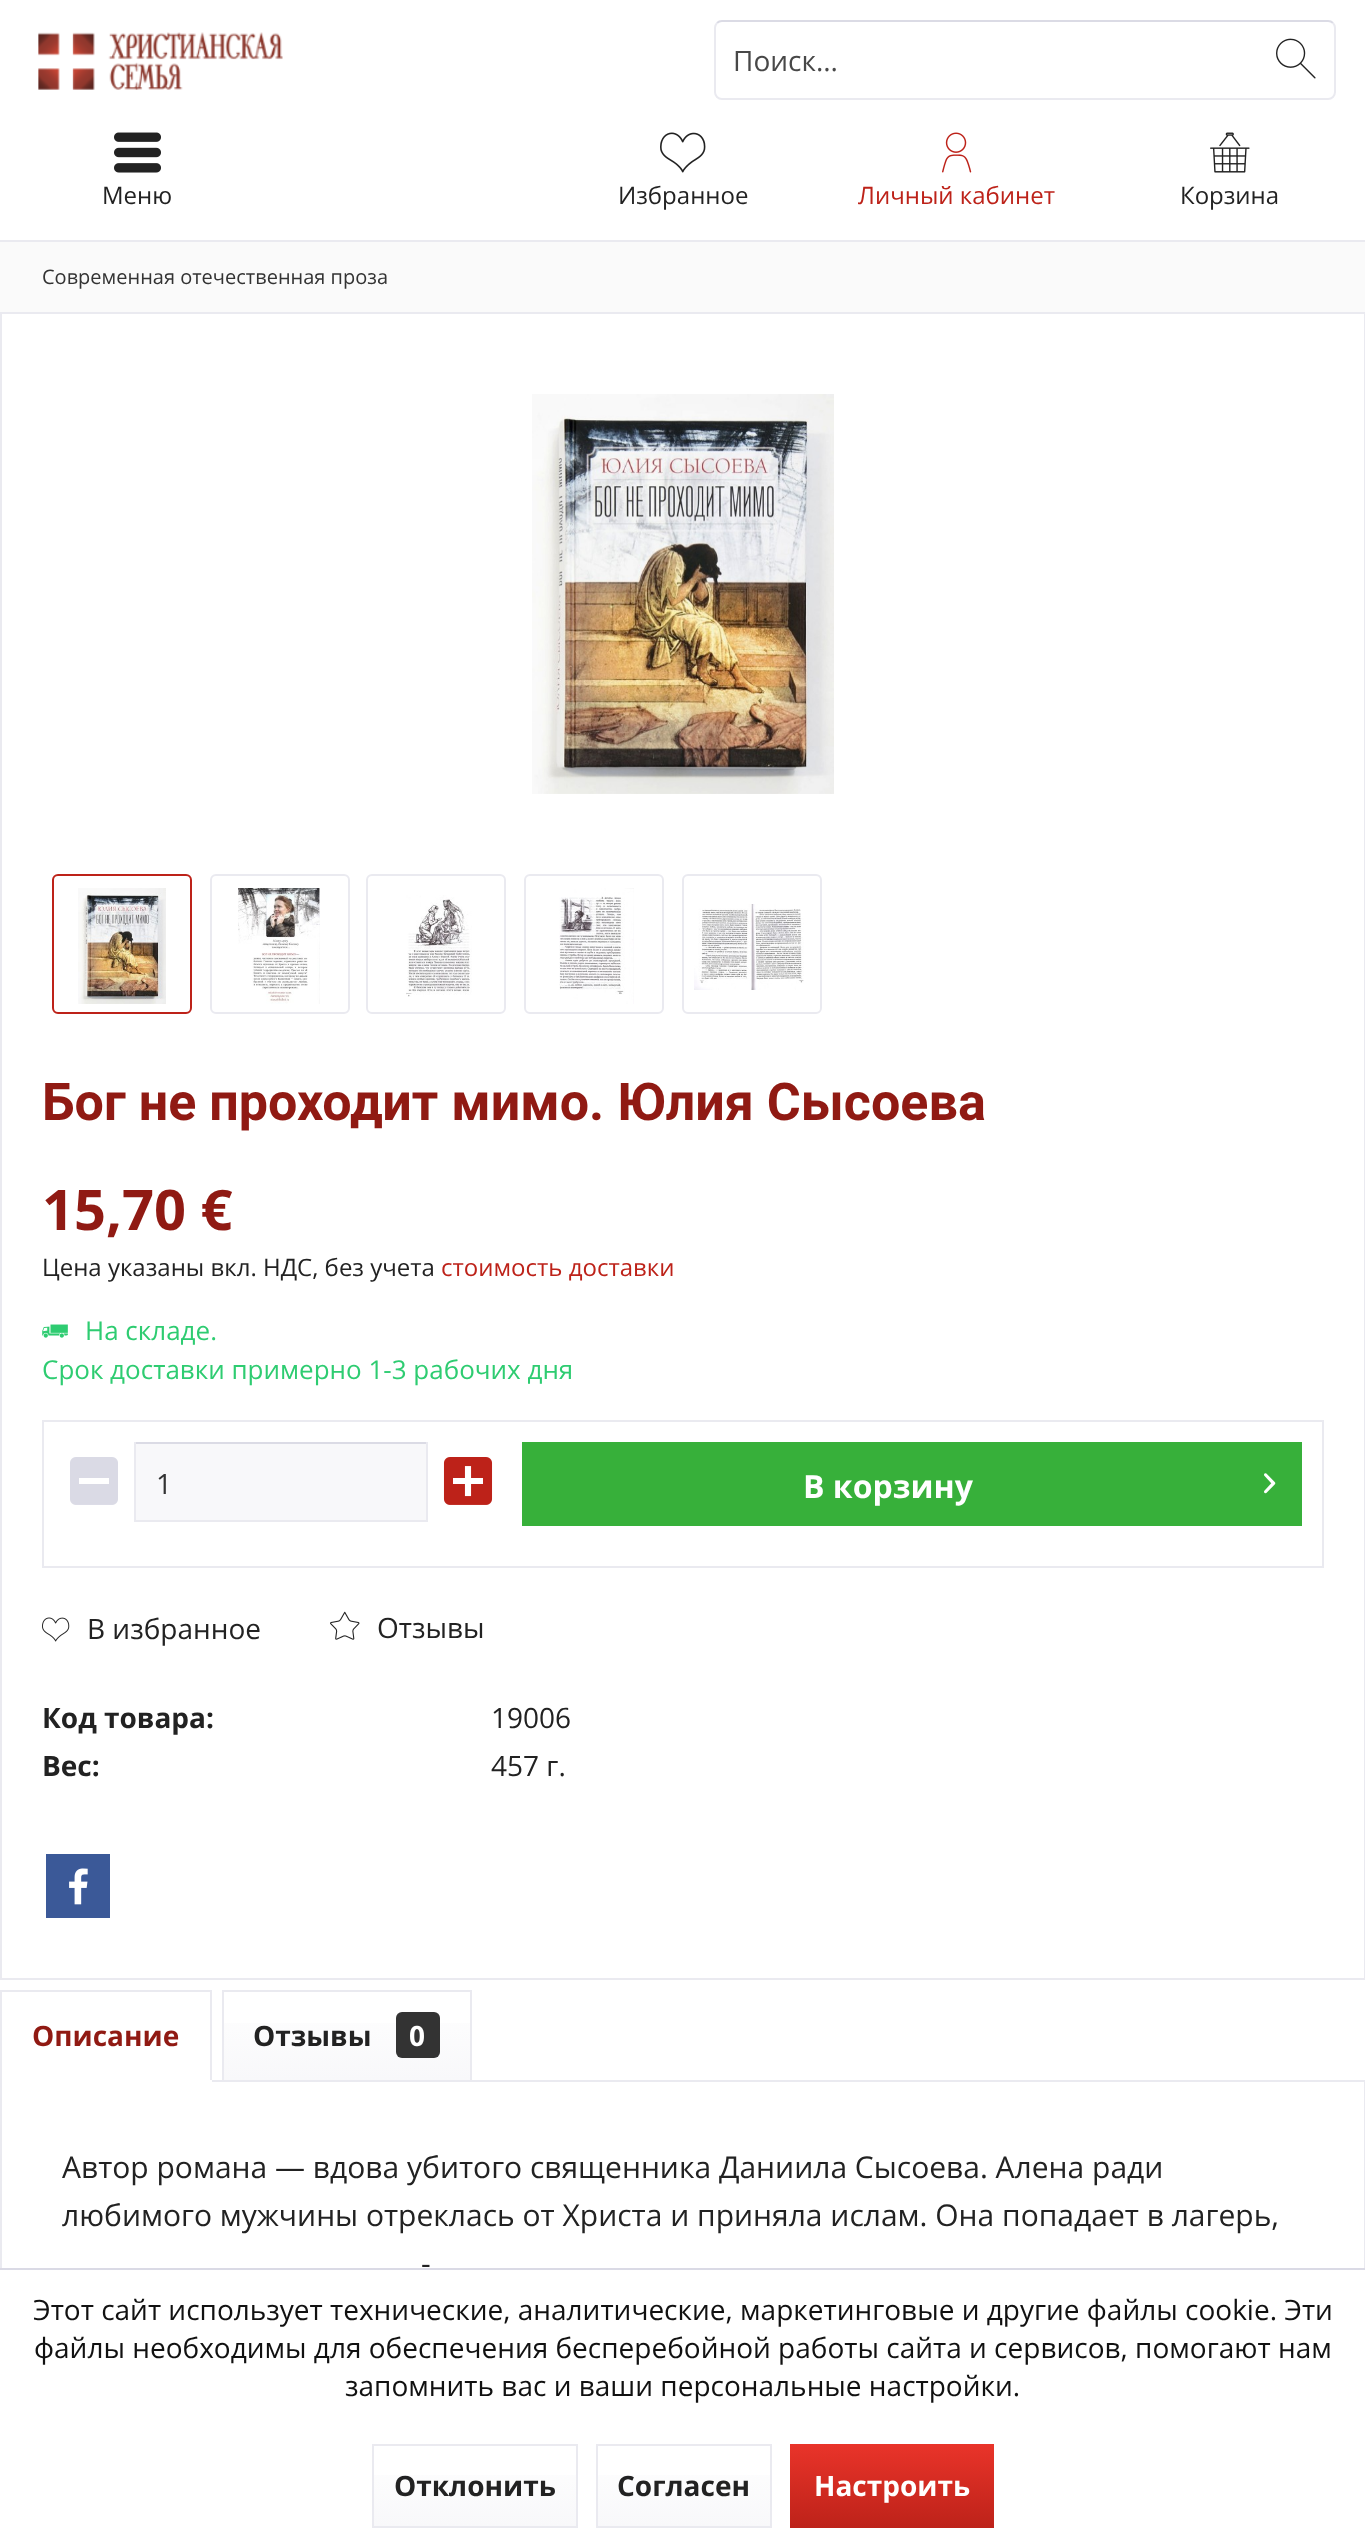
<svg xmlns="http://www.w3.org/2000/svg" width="1365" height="2547">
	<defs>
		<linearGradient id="g1" gradientUnits="userSpaceOnUse" x1="347" y1="1992" x2="347" y2="2080"><stop offset="0" stop-color="#FFFFFF" /><stop offset="1" stop-color="#F8F8FA" /></linearGradient>
		<linearGradient id="g2" gradientUnits="userSpaceOnUse" x1="475" y1="2446" x2="475" y2="2526"><stop offset="0" stop-color="#FFFFFF" /><stop offset="1" stop-color="#F8F8FA" /></linearGradient>
		<linearGradient id="g3" gradientUnits="userSpaceOnUse" x1="684" y1="2446" x2="684" y2="2526"><stop offset="0" stop-color="#FFFFFF" /><stop offset="1" stop-color="#F8F8FA" /></linearGradient>
		<linearGradient id="g4" gradientUnits="userSpaceOnUse" x1="892" y1="2444" x2="892" y2="2528"><stop offset="0" stop-color="#E9342A" /><stop offset="1" stop-color="#BD2219" /></linearGradient>
	</defs>
	<rect width="100%" height="100%" fill="#FFFFFF" />
	<image x="38" y="32" width="245" height="58" href="assets/img1.png" />
	<path d="M717 23C718.5 21.5 720 21 722 21H1328C1330 21 1331.5 21.5 1333 23" fill="none" stroke="#DBDBE5" stroke-width="2" />
	<path d="M1333 23C1334.5 24.5 1335 26 1335 28V92C1335 94 1334.5 95.5 1333 97C1331.5 98.5 1330 99 1328 99H722C720 99 718.5 98.5 717 97C715.5 95.5 715 94 715 92V28C715 26 715.5 24.5 717 23" fill="none" stroke="#EAEAF0" stroke-width="2" />
	<text x="733" y="71" font-family="Open Sans" font-size="28" fill="#484848">Поиск...</text>
	<image x="1276" y="38" width="40" height="41" href="assets/img2.png" />
	<image x="114" y="132" width="47" height="41" href="assets/img3.png" />
	<text x="102" y="204" font-family="Open Sans" font-size="24" fill="#222222">Меню</text>
	<image x="660" y="132" width="46" height="41" href="assets/img4.png" />
	<text x="618" y="204" font-family="Open Sans" font-size="24" fill="#222222">Избранное</text>
	<image x="942" y="132" width="30" height="41" href="assets/img5.png" />
	<text x="858" y="204" font-family="Open Sans" font-size="24" fill="#BD2219">Личный кабинет</text>
	<image x="1210" y="132" width="40" height="41" href="assets/img6.png" />
	<text x="1180" y="204" font-family="Open Sans" font-size="24" fill="#222222">Корзина</text>
	<rect x="0" y="242" width="1365" height="70" fill="#FAFAFA" />
	<rect x="0" y="240" width="1365" height="2" fill="#EAEAF0" />
	<text x="42" y="284" font-family="Open Sans" font-size="20" fill="#333333">Современная отечественная проза</text>
	<rect x="0" y="312" width="1365" height="2" fill="#EAEAF0" />
	<rect x="1364" y="312" width="1" height="1668" fill="#EAEAF0" />
	<rect x="0" y="312" width="2" height="42" fill="#EAEAF0" />
	<rect x="0" y="1978" width="1365" height="2" fill="#EAEAF0" />
	<rect x="0" y="354" width="2" height="1626" fill="#EAEAF0" />
	<image x="532" y="394" width="302" height="400" href="assets/img7.png" />
	<rect x="53" y="875" width="138" height="138" rx="5" fill="none" stroke="#BD2219" stroke-width="2" />
	<image x="78" y="888" width="88" height="116" href="assets/img8.png" />
	<rect x="211" y="875" width="138" height="138" rx="5" fill="none" stroke="#EAEAF0" stroke-width="2" />
	<image x="238" y="888" width="82" height="116" href="assets/img9.png" />
	<rect x="367" y="875" width="138" height="138" rx="5" fill="none" stroke="#EAEAF0" stroke-width="2" />
	<image x="406" y="895" width="66" height="102" href="assets/img10.png" />
	<rect x="525" y="875" width="138" height="138" rx="5" fill="none" stroke="#EAEAF0" stroke-width="2" />
	<image x="559" y="888" width="75" height="116" href="assets/img11.png" />
	<rect x="683" y="875" width="138" height="138" rx="5" fill="none" stroke="#EAEAF0" stroke-width="2" />
	<image x="694" y="904" width="110" height="86" href="assets/img12.png" />
	<text x="42" y="1120" font-family="Roboto" font-size="52" font-weight="700" fill="#901A13">Бог не проходит мимо. Юлия Сысоева</text>
	<text x="42" y="1230" font-family="Open Sans" font-size="56" font-weight="700" fill="#901A13">15,70 €</text>
	<text x="42" y="1276" font-family="Open Sans" font-size="24" fill="#222222">Цена указаны вкл. НДС, без учета</text>
	<text x="441" y="1276" font-family="Open Sans" font-size="24" fill="#BD2219">стоимость доставки</text>
	<image x="42" y="1324" width="26" height="14" href="assets/img13.png" />
	<g font-family="Open Sans" font-size="26" fill="#2ECC71">
		<text x="85" y="1340">На складе.</text>
		<text x="42" y="1379">Срок доставки примерно 1-3 рабочих дня</text>
	</g>
	<rect x="43" y="1421" width="1280" height="146" fill="none" stroke="#EAEAF0" stroke-width="2" />
	<image x="70" y="1457" width="48" height="48" href="assets/img14.png" />
	<rect x="136" y="1444" width="290" height="76" fill="#F8F8FA" />
	<rect x="134" y="1442" width="294" height="2" fill="#DBDBE5" />
	<rect x="426" y="1442" width="2" height="80" fill="#EAEAF0" />
	<rect x="134" y="1520" width="294" height="2" fill="#EAEAF0" />
	<rect x="134" y="1442" width="2" height="80" fill="#EAEAF0" />
	<text x="156" y="1494" font-family="Open Sans" font-size="28" fill="#333333">1</text>
	<image x="443" y="1457" width="50" height="48" href="assets/img15.png" />
	<rect x="522" y="1442" width="780" height="84" fill="#37B03A" />
	<text x="803" y="1498" font-family="Open Sans" font-size="32" font-weight="700" fill="#FFFFFF">В корзину</text>
	<image x="1264" y="1473" width="12" height="21" href="assets/img16.png" />
	<image x="42" y="1617" width="28" height="25" href="assets/img17.png" />
	<text x="87" y="1639" font-family="Open Sans" font-size="28" fill="#222222">В избранное</text>
	<image x="330" y="1611" width="30" height="29" href="assets/img18.png" />
	<text x="377" y="1638" font-family="Open Sans" font-size="28" fill="#222222">Отзывы</text>
	<text x="42" y="1728" font-family="Open Sans" font-size="28" font-weight="700" fill="#222222">Код товара:</text>
	<text x="491" y="1728" font-family="Open Sans" font-size="28" fill="#222222">19006</text>
	<text x="42" y="1776" font-family="Open Sans" font-size="28" font-weight="700" fill="#222222">Вес:</text>
	<text x="491" y="1776" font-family="Open Sans" font-size="28" fill="#222222">457 г.</text>
	<rect x="46" y="1854" width="64" height="64" fill="#3B5998" />
	<image x="69" y="1868" width="19" height="37" href="assets/img19.png" />
	<rect x="0" y="1990" width="212" height="2" fill="#EAEAF0" />
	<rect x="1" y="2081" width="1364" height="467" fill="none" stroke="#EAEAF0" stroke-width="2" />
	<rect x="210" y="1990" width="2" height="92" fill="#EAEAF0" />
	<rect x="0" y="2080" width="212" height="2" fill="#FFFFFF" />
	<rect x="0" y="1990" width="2" height="92" fill="#EAEAF0" />
	<text x="32" y="2046" font-family="Open Sans" font-size="28" font-weight="700" fill="#901A13">Описание</text>
	<rect x="224" y="2023" width="246" height="57" fill="url(#g1)" />
	<rect x="223" y="1991" width="248" height="90" fill="none" stroke="#EAEAF0" stroke-width="2" />
	<text x="253" y="2046" font-family="Open Sans" font-size="28" font-weight="700" fill="#222222">Отзывы</text>
	<rect x="396" y="2012" width="44" height="46" rx="6" fill="#333333" />
	<text x="409" y="2046" font-family="Open Sans" font-size="28" font-weight="700" fill="#FFFFFF">0</text>
	<g font-family="Open Sans" font-size="30" fill="#222222">
		<text x="62" y="2178">Автор романа — вдова убитого священника Даниила Сысоева. Алена ради</text>
		<text x="62" y="2226">любимого мужчины отреклась от Христа и приняла ислам. Она попадает в лагерь,</text>
		<text x="421" y="2274">-</text>
	</g>
	<rect x="0" y="2270" width="1365" height="277" fill="#FFFFFF" />
	<rect x="0" y="2268" width="1365" height="2" fill="#DADAE5" />
	<g font-family="Open Sans" font-size="28" fill="#111111">
		<text x="33" y="2320">Этот сайт использует технические, аналитические, маркетинговые и другие файлы cookie. Эти</text>
		<text x="34" y="2358">файлы необходимы для обеспечения бесперебойной работы сайта и сервисов, помогают нам</text>
		<text x="345" y="2396">запомнить вас и ваши персональные настройки.</text>
	</g>
	<rect x="374" y="2475" width="202" height="51" fill="url(#g2)" />
	<rect x="373" y="2445" width="204" height="82" fill="none" stroke="#EAEAF0" stroke-width="2" />
	<text x="394" y="2496" font-family="Open Sans" font-size="28" font-weight="700" fill="#222222">Отклонить</text>
	<rect x="598" y="2475" width="172" height="51" fill="url(#g3)" />
	<rect x="597" y="2445" width="174" height="82" fill="none" stroke="#EAEAF0" stroke-width="2" />
	<text x="617" y="2496" font-family="Open Sans" font-size="28" font-weight="700" fill="#222222">Согласен</text>
	<rect x="790" y="2444" width="204" height="84" fill="url(#g4)" />
	<text x="814" y="2496" font-family="Open Sans" font-size="28" font-weight="700" fill="#FFFFFF">Настроить</text>
</svg>
